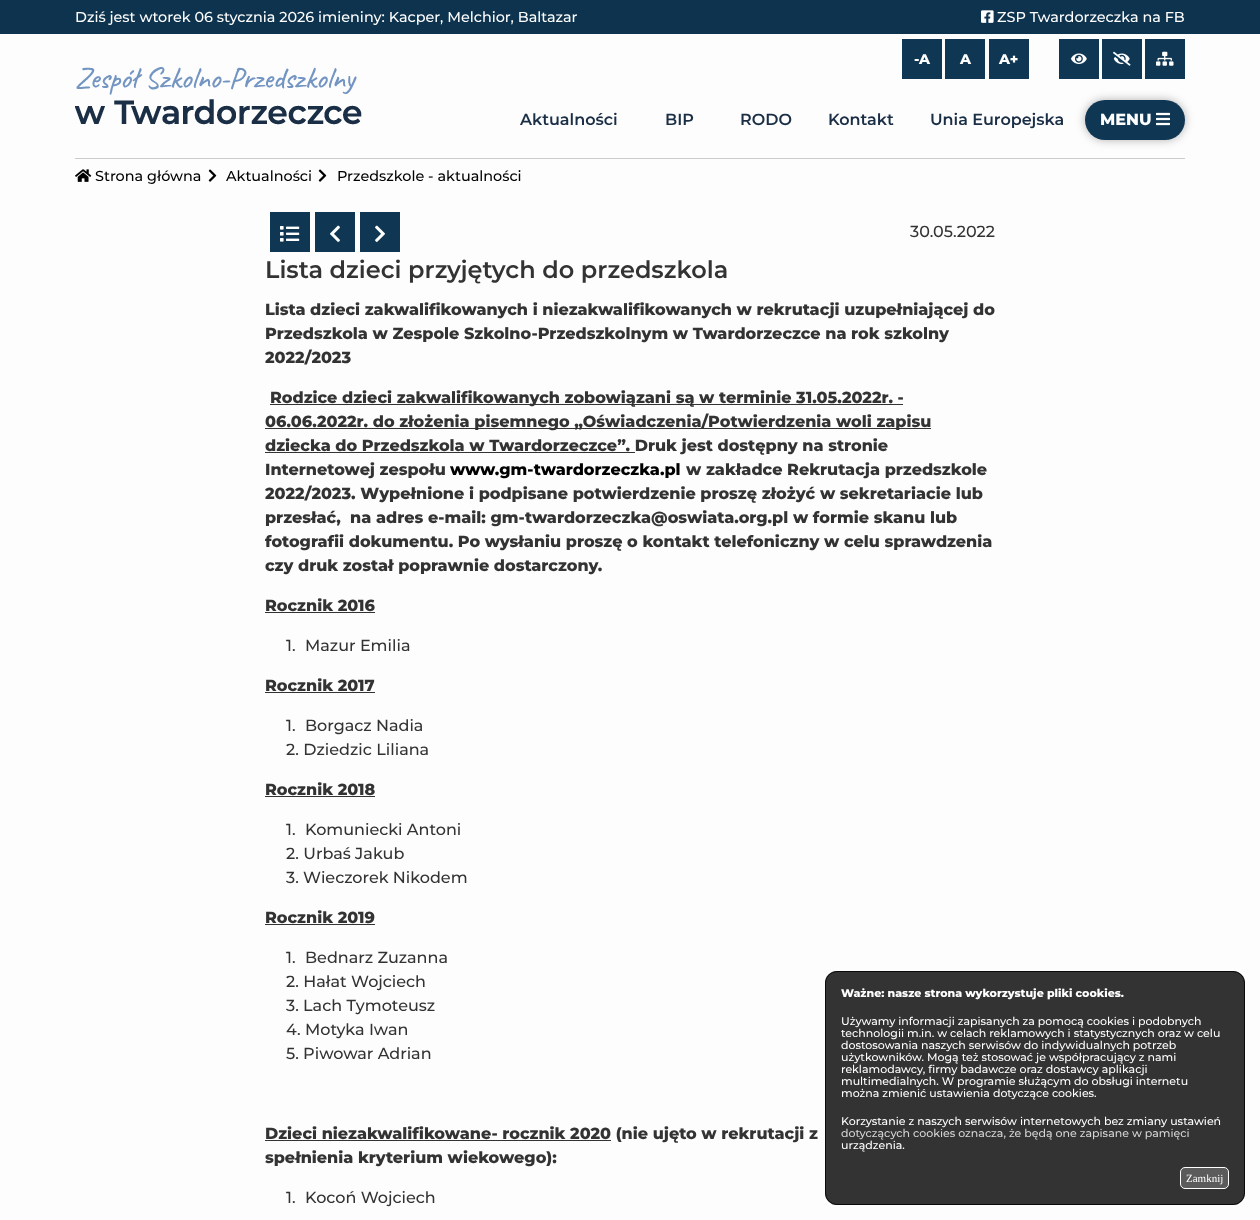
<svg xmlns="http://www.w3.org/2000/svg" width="1260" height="1220">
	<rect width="100%" height="100%" fill="#FDFDFD" />
	<rect x="0" y="0" width="1260" height="34" fill="#0E334E" />
	<text x="75" y="22" font-family="Montserrat" font-size="14.4" font-weight="500" fill="#FFFFFF">Dziś jest wtorek 06 stycznia 2026 imieniny: Kacper, Melchior, Baltazar</text>
	<image x="981" y="10" width="13" height="13" href="assets/img1.png" />
	<text x="997" y="22" font-family="Montserrat" font-size="14.4" font-weight="500" fill="#FFFFFF">ZSP Twardorzeczka na FB</text>
	<rect x="902" y="39" width="40" height="40" fill="#0F3754" />
	<text x="914" y="64" font-family="Montserrat" font-size="14" font-weight="800" fill="#FFFFFF">-A</text>
	<rect x="945" y="39" width="40" height="40" fill="#0F3754" />
	<text x="960" y="64" font-family="Montserrat" font-size="14" font-weight="800" fill="#FFFFFF">A</text>
	<rect x="989" y="39" width="40" height="40" fill="#0F3754" />
	<text x="999" y="64" font-family="Montserrat" font-size="14" font-weight="800" fill="#FFFFFF">A+</text>
	<rect x="1059" y="39" width="40" height="40" fill="#0F3754" />
	<image x="1071" y="53" width="16" height="11" href="assets/img2.png" />
	<rect x="1102" y="39" width="40" height="40" fill="#0F3754" />
	<image x="1113" y="51" width="18" height="15" href="assets/img3.png" />
	<rect x="1145" y="39" width="40" height="40" fill="#0F3754" />
	<image x="1156" y="51" width="18" height="15" href="assets/img4.png" />
	<image x="75" y="66" width="287" height="59" href="assets/img5.png" />
	<g font-family="Montserrat" font-size="16" font-weight="600" fill="#1A2E46">
		<text x="520" y="125">Aktualności</text>
		<text x="665" y="125">BIP</text>
		<text x="740" y="125">RODO</text>
		<text x="828" y="125">Kontakt</text>
		<text x="930" y="125">Unia Europejska</text>
	</g>
	<rect x="1085" y="100" width="100" height="40" rx="20" fill="#000000" fill-opacity="0.3" filter="blur(5px)" />
	<rect x="1085" y="100" width="100" height="40" rx="20" fill="#0F3754" />
	<text x="1100" y="125" font-family="Montserrat" font-size="16" font-weight="800" fill="#FFFFFF">MENU</text>
	<image x="1156" y="112" width="14" height="14" href="assets/img6.png" />
	<rect x="75" y="158" width="1110" height="1" fill="#CCCCCC" />
	<image x="75" y="169" width="17" height="13" href="assets/img7.png" />
	<text x="95" y="181" font-family="Montserrat" font-size="14.4" font-weight="500" fill="#000000">Strona główna</text>
	<image x="208" y="169" width="9" height="13" href="assets/img8.png" />
	<text x="226" y="181" font-family="Montserrat" font-size="14.4" font-weight="500" fill="#000000">Aktualności</text>
	<image x="318" y="169" width="9" height="13" href="assets/img8.png" />
	<text x="337" y="181" font-family="Montserrat" font-size="14.4" font-weight="500" fill="#000000">Przedszkole - aktualności</text>
	<rect x="270" y="212" width="40" height="40" fill="#0F3754" />
	<image x="280" y="226" width="20" height="16" href="assets/img9.png" />
	<rect x="315" y="212" width="40" height="40" fill="#0F3754" />
	<image x="330" y="225" width="10" height="17" href="assets/img10.png" />
	<rect x="360" y="212" width="40" height="40" fill="#0F3754" />
	<image x="375" y="225" width="10" height="17" href="assets/img11.png" />
	<text x="910" y="237" font-family="Montserrat" font-size="16" font-weight="500" fill="#333333">30.05.2022</text>
	<text x="265" y="278" font-family="Montserrat" font-size="24" font-weight="600" fill="#333333">Lista dzieci przyjętych do przedszkola</text>
	<g font-family="Montserrat" font-size="16" font-weight="800" fill="#333333">
		<text x="265" y="315">Lista dzieci zakwalifikowanych i niezakwalifikowanych w rekrutacji uzupełniającej do</text>
		<text x="265" y="339">Przedszkola w Zespole Szkolno-Przedszkolnym w Twardorzeczce na rok szkolny</text>
		<text x="265" y="363">2022/2023</text>
	</g>
	<rect x="270" y="404" width="633" height="1" fill="#333333" />
	<text x="270" y="403" font-family="Montserrat" font-size="16" font-weight="800" fill="#333333">Rodzice dzieci zakwalifikowanych zobowiązani są w terminie 31.05.2022r. -</text>
	<rect x="265" y="428" width="666" height="1" fill="#333333" />
	<text x="265" y="427" font-family="Montserrat" font-size="16" font-weight="800" fill="#333333">06.06.2022r. do złożenia pisemnego „Oświadczenia/Potwierdzenia woli zapisu</text>
	<rect x="265" y="452" width="370" height="1" fill="#333333" />
	<g font-family="Montserrat" font-size="16" font-weight="800" fill="#333333">
		<text x="265" y="451">dziecka do Przedszkola w Twardorzeczce”. Druk jest dostępny na stronie</text>
		<text x="265" y="475">Internetowej zespołu</text>
	</g>
	<text x="450" y="475" font-family="Montserrat" font-size="16" font-weight="800" fill="#000000">www.gm-twardorzeczka.pl</text>
	<g font-family="Montserrat" font-size="16" font-weight="800" fill="#333333">
		<text x="686" y="475">w zakładce Rekrutacja przedszkole</text>
		<text x="265" y="499">2022/2023. Wypełnione i podpisane potwierdzenie proszę złożyć w sekretariacie lub</text>
		<text x="265" y="523" xml:space="preserve">przesłać,  na adres e-mail: gm-twardorzeczka@oswiata.org.pl w formie skanu lub</text>
		<text x="265" y="547">fotografii dokumentu. Po wysłaniu proszę o kontakt telefoniczny w celu sprawdzenia</text>
		<text x="265" y="571">czy druk został poprawnie dostarczony.</text>
		<text x="265" y="611">Rocznik 2016</text>
	</g>
	<rect x="265" y="612" width="110" height="1" fill="#333333" />
	<text x="286" y="651" font-family="Montserrat" font-size="16" font-weight="500" fill="#333333">1.</text>
	<text x="305" y="651" font-family="Montserrat" font-size="16" font-weight="500" fill="#333333">Mazur Emilia</text>
	<text x="265" y="691" font-family="Montserrat" font-size="16" font-weight="800" fill="#333333">Rocznik 2017</text>
	<rect x="265" y="692" width="110" height="1" fill="#333333" />
	<g font-family="Montserrat" font-size="16" font-weight="500" fill="#333333">
		<text x="286" y="731">1.</text>
		<text x="305" y="731">Borgacz Nadia</text>
		<text x="286" y="755">2. Dziedzic Liliana</text>
	</g>
	<text x="265" y="795" font-family="Montserrat" font-size="16" font-weight="800" fill="#333333">Rocznik 2018</text>
	<rect x="265" y="796" width="110" height="1" fill="#333333" />
	<g font-family="Montserrat" font-size="16" font-weight="500" fill="#333333">
		<text x="286" y="835">1.</text>
		<text x="305" y="835">Komuniecki Antoni</text>
		<text x="286" y="859">2. Urbaś Jakub</text>
		<text x="286" y="883">3. Wieczorek Nikodem</text>
	</g>
	<text x="265" y="923" font-family="Montserrat" font-size="16" font-weight="800" fill="#333333">Rocznik 2019</text>
	<rect x="265" y="924" width="110" height="1" fill="#333333" />
	<g font-family="Montserrat" font-size="16" font-weight="500" fill="#333333">
		<text x="286" y="963">1.</text>
		<text x="305" y="963">Bednarz Zuzanna</text>
		<text x="286" y="987">2. Hałat Wojciech</text>
		<text x="286" y="1011">3. Lach Tymoteusz</text>
		<text x="286" y="1035">4. Motyka Iwan</text>
		<text x="286" y="1059">5. Piwowar Adrian</text>
	</g>
	<rect x="265" y="1140" width="346" height="1" fill="#333333" />
	<g font-family="Montserrat" font-size="16" font-weight="800" fill="#333333">
		<text x="265" y="1139">Dzieci niezakwalifikowane- rocznik 2020 (nie ujęto w rekrutacji z</text>
		<text x="265" y="1163">spełnienia kryterium wiekowego):</text>
	</g>
	<text x="286" y="1203" font-family="Montserrat" font-size="16" font-weight="500" fill="#333333">1.</text>
	<text x="305" y="1203" font-family="Montserrat" font-size="16" font-weight="500" fill="#333333">Kocoń Wojciech</text>
	<rect x="825" y="971" width="420" height="234" rx="12" fill="#000000" fill-opacity="0.8" />
	<rect x="825.5" y="971.5" width="419" height="233" rx="11.5" fill="none" stroke="#000000" stroke-opacity="0.8" />
	<text x="841" y="997" font-family="Montserrat" font-size="11" font-weight="800" fill="#FFFFFF">Ważne: nasze strona wykorzystuje pliki cookies.</text>
	<g font-family="Montserrat" font-size="11" font-weight="500" fill="#FFFFFF">
		<text x="841" y="1025">Używamy informacji zapisanych za pomocą cookies i podobnych</text>
		<text x="841" y="1037">technologii m.in. w celach reklamowych i statystycznych oraz w celu</text>
		<text x="841" y="1049">dostosowania naszych serwisów do indywidualnych potrzeb</text>
		<text x="841" y="1061">użytkowników. Mogą też stosować je współpracujący z nami</text>
		<text x="841" y="1073">reklamodawcy, firmy badawcze oraz dostawcy aplikacji</text>
		<text x="841" y="1085">multimedialnych. W programie służącym do obsługi internetu</text>
		<text x="841" y="1097">można zmienić ustawienia dotyczące cookies.</text>
		<text x="841" y="1125">Korzystanie z naszych serwisów internetowych bez zmiany ustawień</text>
	</g>
	<text x="841" y="1137" font-family="Montserrat" font-size="11" font-weight="500" fill="#D5D5D5">dotyczących cookies oznacza, że będą one zapisane w pamięci</text>
	<text x="841" y="1149" font-family="Montserrat" font-size="11" font-weight="500" fill="#FFFFFF">urządzenia.</text>
	<rect x="1180.5" y="1167.5" width="48" height="21" rx="4.5" fill="#5B5B5B" stroke="#FEFEFE" />
	<text x="1186" y="1182" font-family="Liberation Serif" font-size="11" fill="#FFFFFF">Zamknij</text>
</svg>
